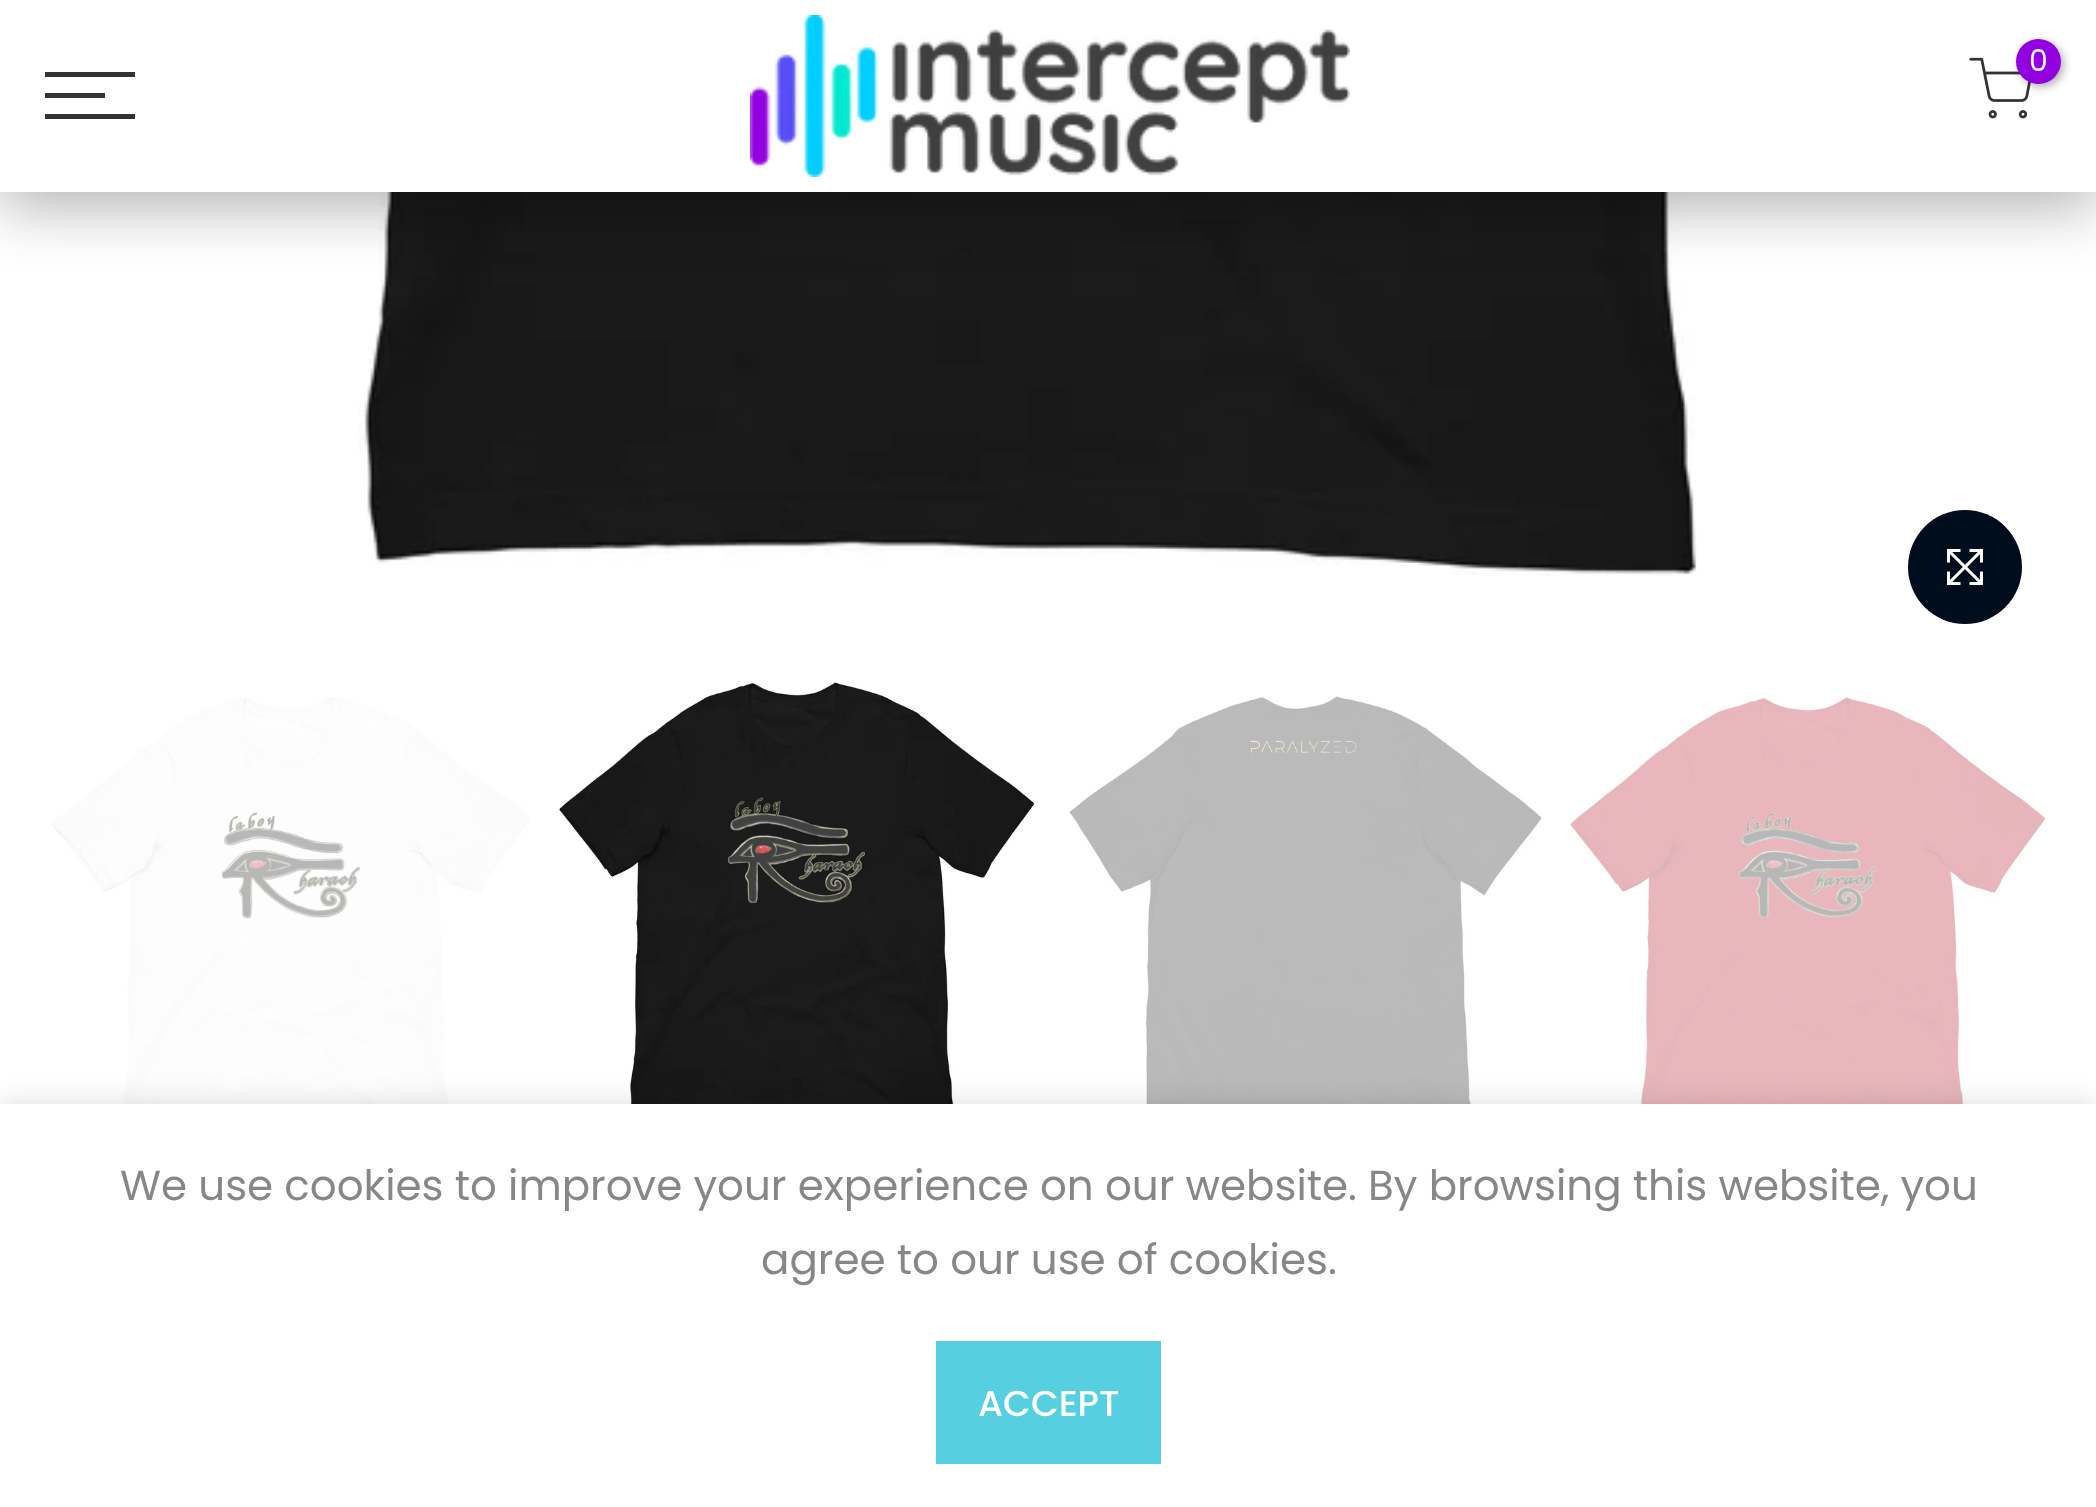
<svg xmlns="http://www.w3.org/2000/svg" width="2096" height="1507">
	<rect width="100%" height="100%" fill="#FFFFFF" />
	<image x="358" y="192" width="1339" height="384" href="assets/img3.png" />
	<rect x="0" y="15" width="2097" height="192" fill="#000000" fill-opacity="0.3" filter="blur(30px)" />
	<rect x="0" y="0" width="2096" height="192" fill="#FFFFFF" />
	<image x="750" y="15" width="600" height="162" href="assets/img1.png" />
	<image x="1969" y="57" width="62" height="62" href="assets/img2.png" />
	<rect x="2019" y="42" width="45" height="45" rx="22.5" fill="#000000" fill-opacity="0.3" filter="blur(4.5px)" />
	<circle cx="2038.5" cy="61.5" r="22.5" fill="#9200E0" />
	<text x="2029" y="71" font-family="Poppins" font-size="30" fill="#FFFFFF">0</text>
	<rect x="45" y="72" width="90" height="5" fill="#333333" />
	<rect x="45" y="93" width="60" height="5" fill="#333333" />
	<rect x="45" y="114" width="90" height="5" fill="#333333" />
	<circle cx="1965" cy="567" r="57" fill="#000D1D" />
	<image x="1947" y="549" width="36" height="36" href="assets/img4.png" />
	<image x="52" y="697" width="478" height="407" href="assets/img5.png" />
	<image x="558" y="682" width="477" height="422" href="assets/img6.png" />
	<image x="1069" y="696" width="473" height="408" href="assets/img7.png" />
	<image x="1570" y="697" width="476" height="407" href="assets/img8.png" />
	<rect x="0" y="1104" width="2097" height="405" fill="#000000" fill-opacity="0.14" filter="blur(13.5px)" />
	<rect x="0" y="1104" width="2096" height="403" fill="#FFFFFF" />
	<g font-family="Poppins" font-size="42" fill="#878787">
		<text x="120" y="1200">We use cookies to improve your experience on our website. By browsing this website, you</text>
		<text x="761" y="1274">agree to our use of cookies.</text>
	</g>
	<rect x="936" y="1341" width="225" height="123" fill="#56CFE1" />
	<text x="978" y="1416" font-family="Poppins" font-size="36" font-weight="500" fill="#FFFFFF">ACCEPT</text>
</svg>
